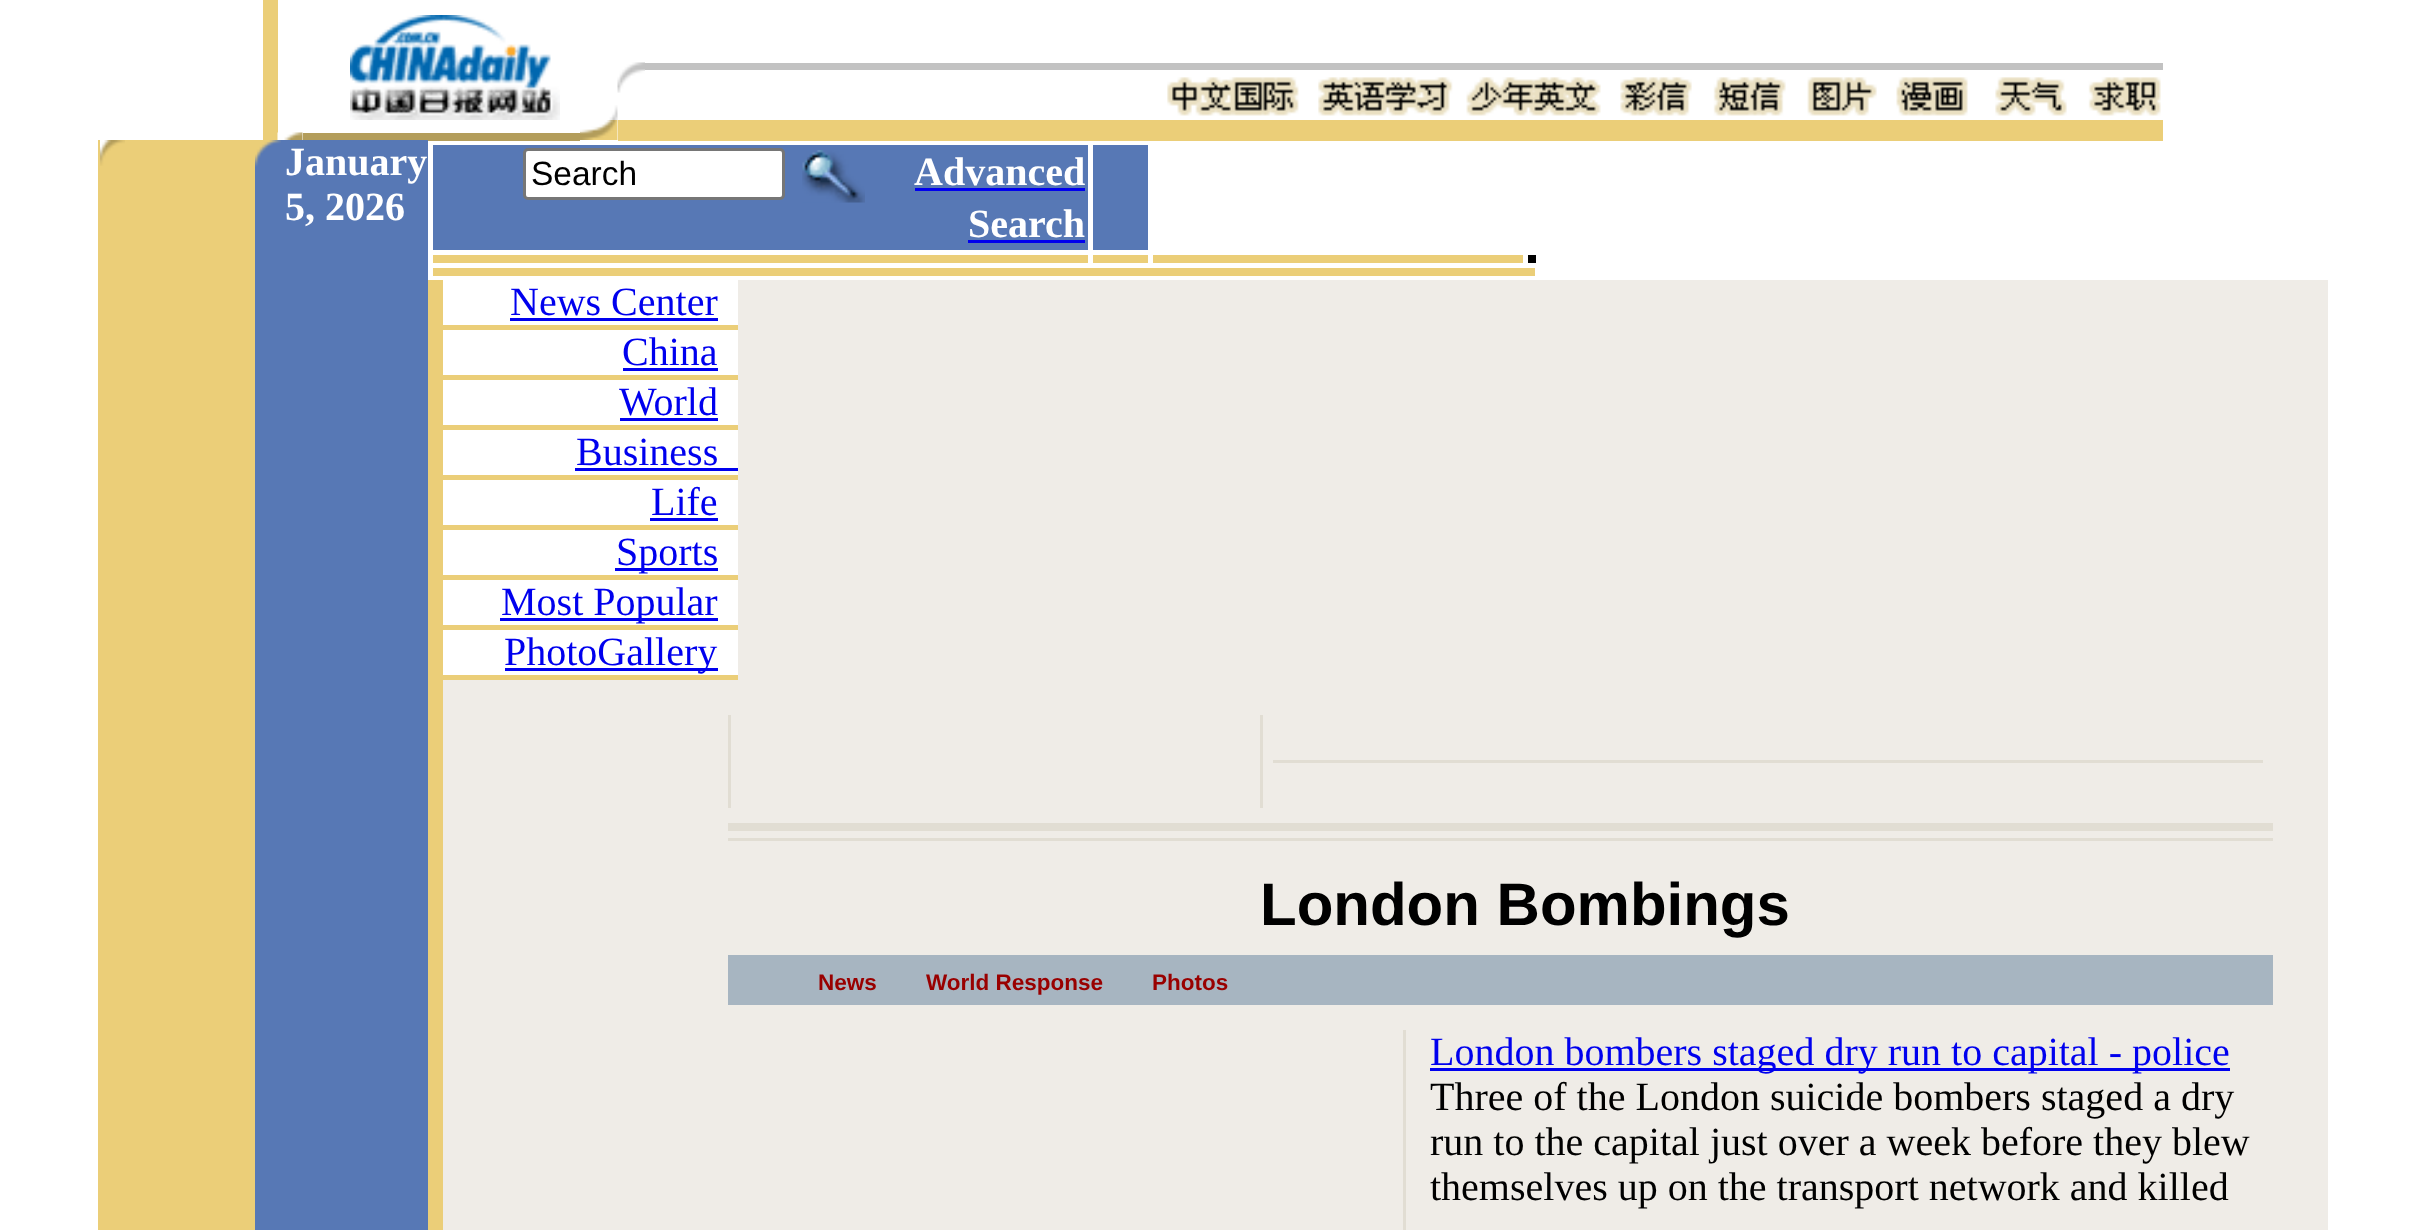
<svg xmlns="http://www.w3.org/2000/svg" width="2423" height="1230">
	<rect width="100%" height="100%" fill="#FFFFFF" />
	<rect x="263" y="0" width="15" height="140" fill="#EBCE78" />
	<image x="350" y="15" width="210" height="105" href="assets/img1.png" />
	<image x="617" y="62" width="28" height="31" href="assets/img2.png" />
	<rect x="645" y="63" width="1518" height="7" fill="#C2C2C2" />
	<image x="609" y="105" width="9" height="15" href="assets/img3.png" />
	<image x="1167" y="77" width="994" height="39" href="assets/img4.png" />
	<image x="580" y="120" width="38" height="20" href="assets/img5.png" />
	<rect x="618" y="120" width="1545" height="13" fill="#EBCE78" />
	<image x="277" y="132" width="26" height="8" href="assets/img6.png" />
	<rect x="303" y="133" width="47" height="7" fill="#B39D5B" />
	<rect x="350" y="133" width="230" height="8" fill="#B39D5B" />
	<rect x="618" y="133" width="1545" height="8" fill="#EBCE78" />
	<rect x="98" y="140" width="2" height="1090" fill="#EBCE78" />
	<rect x="100" y="166" width="25" height="1064" fill="#EBCE78" />
	<image x="100" y="140" width="25" height="26" href="assets/img7.png" />
	<rect x="125" y="140" width="130" height="1090" fill="#EBCE78" />
	<rect x="255" y="140" width="173" height="1090" fill="#5778B5" />
	<image x="255" y="140" width="26" height="27" href="assets/img8.png" />
	<g font-family="Liberation Serif" font-size="40" font-weight="700" fill="#FFFFFF">
		<text x="285" y="175">January</text>
		<text x="285" y="220">5, 2026</text>
	</g>
	<rect x="433" y="145" width="655" height="105" fill="#5778B5" />
	<rect x="524.5" y="149.5" width="259" height="49" rx="3.5" fill="#FFFFFF" stroke="#767676" stroke-width="3" />
	<text x="531" y="185" font-family="Liberation Sans" font-size="33.5" fill="#000000">Search</text>
	<image x="802" y="150" width="63" height="53" href="assets/img9.png" />
	<text x="914" y="185" font-family="Liberation Serif" font-size="40" font-weight="700" fill="#FFFFFF">Advanced</text>
	<rect x="915" y="188" width="170" height="3" fill="#0000EE" />
	<text x="968" y="237" font-family="Liberation Serif" font-size="40" font-weight="700" fill="#FFFFFF">Search</text>
	<rect x="968" y="240" width="117" height="3" fill="#0000EE" />
	<rect x="1093" y="145" width="55" height="105" fill="#5778B5" />
	<rect x="433" y="255" width="655" height="8" fill="#EBCE78" />
	<rect x="1093" y="255" width="55" height="8" fill="#EBCE78" />
	<rect x="1153" y="255" width="370" height="8" fill="#EBCE78" />
	<rect x="1528" y="255" width="8" height="8" fill="#000000" />
	<rect x="433" y="268" width="1102" height="8" fill="#EBCE78" />
	<rect x="428" y="280" width="15" height="950" fill="#EBCE78" />
	<rect x="443" y="280" width="1885" height="950" fill="#EFECE7" />
	<rect x="443" y="280" width="295" height="45" fill="#FFFFFF" />
	<text x="510" y="315" font-family="Liberation Serif" font-size="40" fill="#0000EE">News Center</text>
	<rect x="510" y="318" width="208" height="3" fill="#0000EE" />
	<rect x="443" y="325" width="295" height="5" fill="#EBCE78" />
	<rect x="443" y="330" width="295" height="45" fill="#FFFFFF" />
	<text x="622" y="365" font-family="Liberation Serif" font-size="40" fill="#0000EE">China</text>
	<rect x="623" y="368" width="95" height="3" fill="#0000EE" />
	<rect x="443" y="375" width="295" height="5" fill="#EBCE78" />
	<rect x="443" y="380" width="295" height="45" fill="#FFFFFF" />
	<text x="619" y="415" font-family="Liberation Serif" font-size="40" fill="#0000EE">World</text>
	<rect x="620" y="418" width="98" height="3" fill="#0000EE" />
	<rect x="443" y="425" width="295" height="5" fill="#EBCE78" />
	<rect x="443" y="430" width="295" height="45" fill="#FFFFFF" />
	<text x="576" y="465" font-family="Liberation Serif" font-size="40" fill="#0000EE">Business</text>
	<rect x="575" y="468" width="163" height="3" fill="#0000EE" />
	<rect x="443" y="475" width="295" height="5" fill="#EBCE78" />
	<rect x="443" y="480" width="295" height="45" fill="#FFFFFF" />
	<text x="651" y="515" font-family="Liberation Serif" font-size="40" fill="#0000EE">Life</text>
	<rect x="650" y="518" width="68" height="3" fill="#0000EE" />
	<rect x="443" y="525" width="295" height="5" fill="#EBCE78" />
	<rect x="443" y="530" width="295" height="45" fill="#FFFFFF" />
	<rect x="615" y="568" width="103" height="3" fill="#0000EE" />
	<text x="616" y="565" font-family="Liberation Serif" font-size="40" fill="#0000EE">Sports</text>
	<rect x="443" y="575" width="295" height="5" fill="#EBCE78" />
	<rect x="443" y="580" width="295" height="45" fill="#FFFFFF" />
	<rect x="500" y="618" width="218" height="3" fill="#0000EE" />
	<text x="501" y="615" font-family="Liberation Serif" font-size="40" fill="#0000EE">Most Popular</text>
	<rect x="443" y="625" width="295" height="5" fill="#EBCE78" />
	<rect x="443" y="630" width="295" height="45" fill="#FFFFFF" />
	<rect x="505" y="668" width="213" height="3" fill="#0000EE" />
	<text x="504" y="665" font-family="Liberation Serif" font-size="40" fill="#0000EE">PhotoGallery</text>
	<rect x="443" y="675" width="295" height="5" fill="#EBCE78" />
	<rect x="728" y="715" width="3" height="93" fill="#E1DDD3" />
	<rect x="1260" y="715" width="3" height="93" fill="#E1DDD3" />
	<rect x="1273" y="760" width="990" height="3" fill="#E1DDD3" />
	<rect x="728" y="823" width="1545" height="8" fill="#E1DDD3" />
	<rect x="728" y="838" width="1545" height="3" fill="#E1DDD3" />
	<text x="1260" y="925" font-family="Liberation Sans" font-size="60" font-weight="700" fill="#000000">London Bombings</text>
	<rect x="728" y="955" width="1545" height="50" fill="#A7B5C1" />
	<g font-family="Liberation Sans" font-size="22.5" font-weight="700" fill="#990000">
		<text x="818" y="990">News</text>
		<text x="926" y="990">World Response</text>
		<text x="1152" y="990">Photos</text>
	</g>
	<rect x="1403" y="1030" width="3" height="200" fill="#E1DDD3" />
	<rect x="1430" y="1068" width="800" height="3" fill="#0000EE" />
	<text x="1430" y="1065" font-family="Liberation Serif" font-size="40" fill="#0000EE">London bombers staged dry run to capital - police</text>
	<g font-family="Liberation Serif" font-size="40" fill="#000000">
		<text x="1430" y="1110">Three of the London suicide bombers staged a dry</text>
		<text x="1430" y="1155">run to the capital just over a week before they blew</text>
		<text x="1430" y="1200">themselves up on the transport network and killed</text>
	</g>
</svg>
